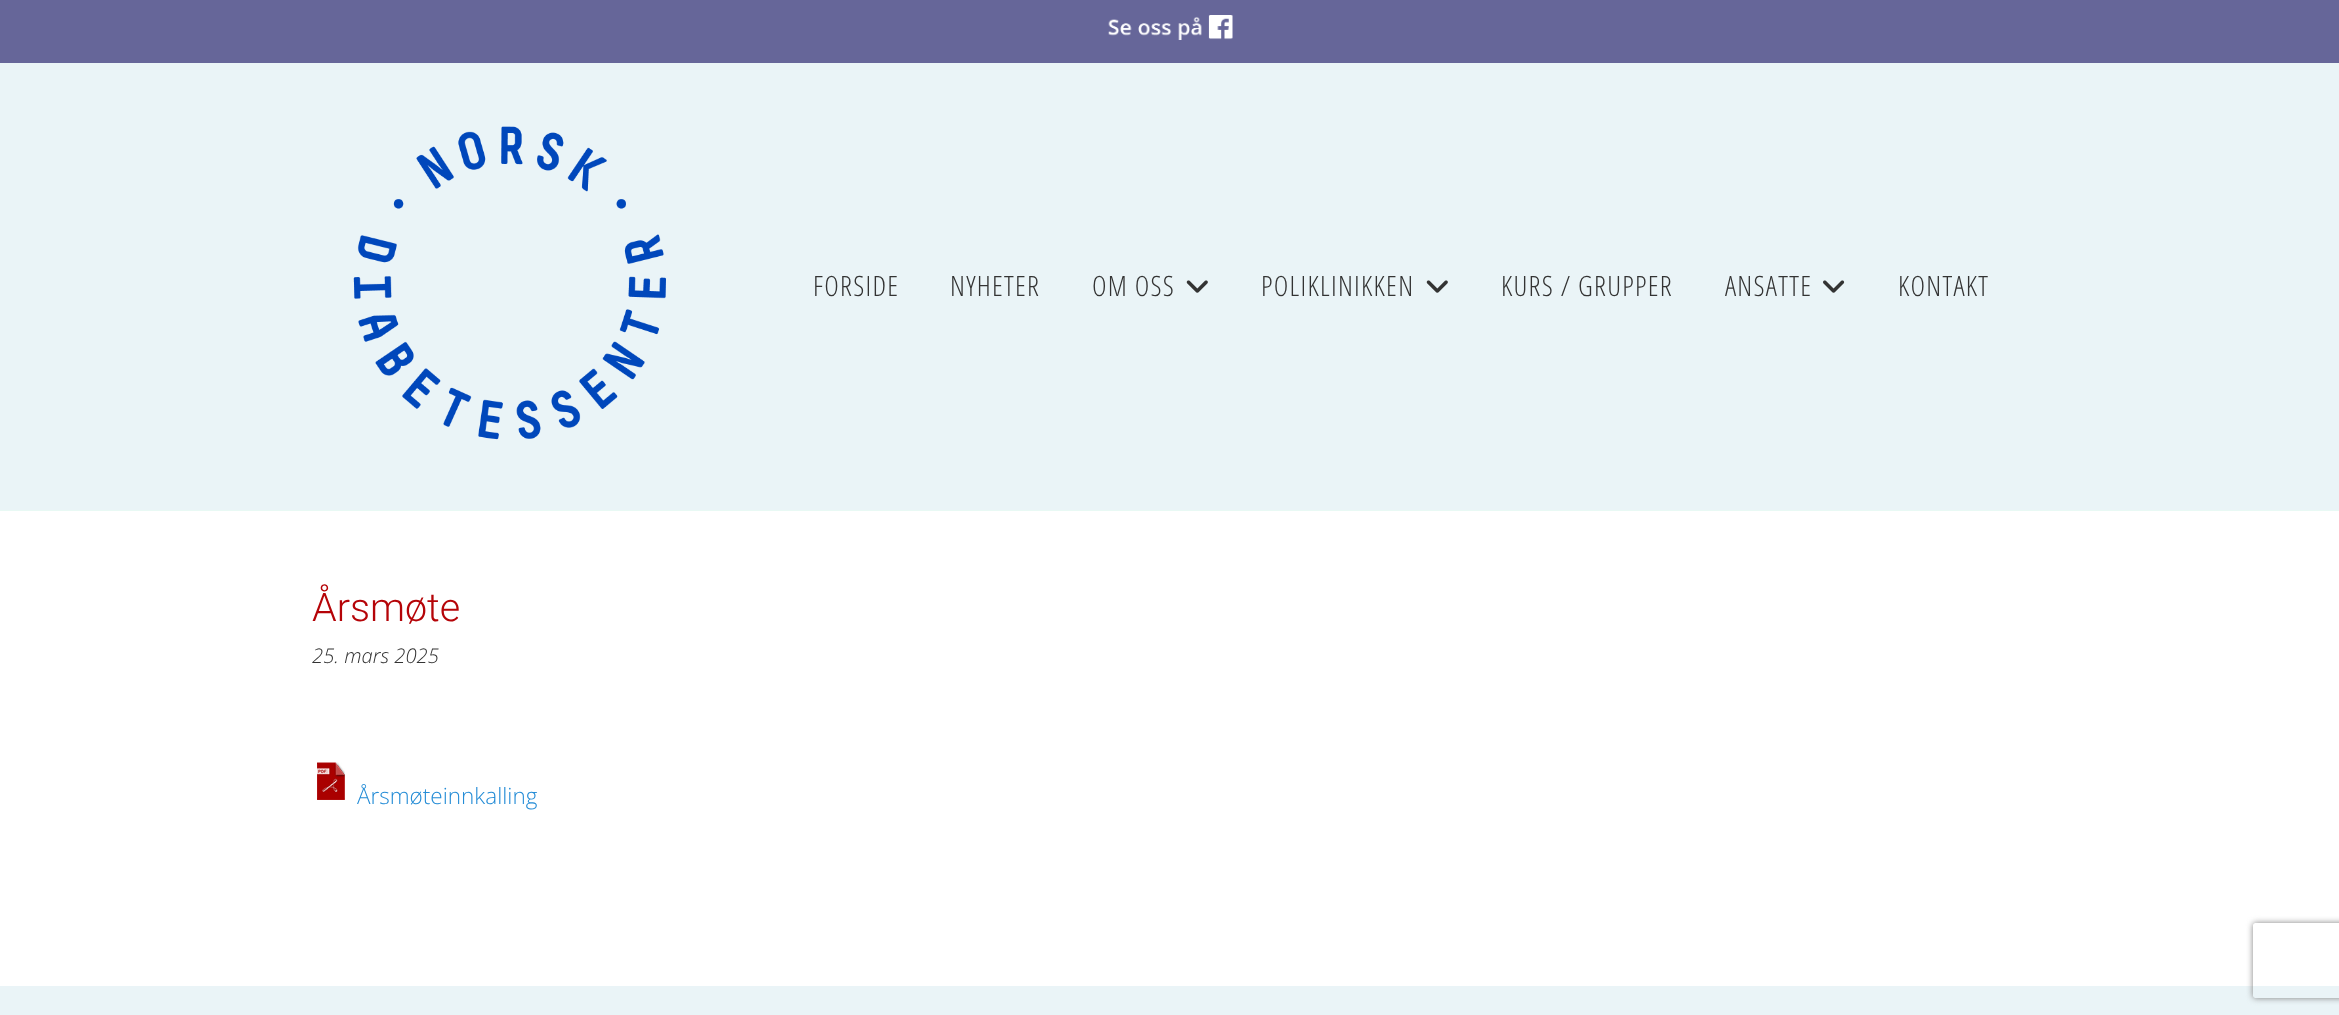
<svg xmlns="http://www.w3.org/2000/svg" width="2339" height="1015">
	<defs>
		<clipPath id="clip1"><path d="M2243 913H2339V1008H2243ZM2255.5 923H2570.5C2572 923 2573 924 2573 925.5V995.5C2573 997 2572 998 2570.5 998H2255.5C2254 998 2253 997 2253 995.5V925.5C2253 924 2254 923 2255.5 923Z" clip-rule="evenodd" /></clipPath>
	</defs>
	<rect width="100%" height="100%" fill="#EAF4F7" />
	<rect x="0" y="510" width="2339" height="1" fill="#E8F9F4" />
	<image x="353" y="126" width="313" height="314" href="assets/img1.png" />
	<g font-family="Open Sans Condensed" font-size="28" font-weight="300" letter-spacing="1.25" fill="#333333">
		<text x="813" y="296">FORSIDE</text>
		<text x="950" y="296">NYHETER</text>
		<text x="1092" y="296">OM OSS</text>
	</g>
	<image x="1186" y="280" width="22" height="13" href="assets/img2.png" />
	<text x="1261" y="296" font-family="Open Sans Condensed" font-size="28" font-weight="300" letter-spacing="1.25" fill="#333333">POLIKLINIKKEN</text>
	<image x="1426" y="280" width="22" height="13" href="assets/img2.png" />
	<g font-family="Open Sans Condensed" font-size="28" font-weight="300" letter-spacing="1.25" fill="#333333">
		<text x="1501" y="296">KURS / GRUPPER</text>
		<text x="1725" y="296">ANSATTE</text>
	</g>
	<image x="1823" y="280" width="22" height="13" href="assets/img3.png" />
	<text x="1898" y="296" font-family="Open Sans Condensed" font-size="28" font-weight="300" letter-spacing="1.25" fill="#333333">KONTAKT</text>
	<rect x="0" y="511" width="2339" height="475" fill="#FFFFFF" />
	<rect x="0" y="0" width="2339" height="63" fill="#666699" />
	<image x="1108" y="15" width="125" height="25" href="assets/img4.png" />
	<text x="312" y="621" font-family="Roboto" font-size="39.5" font-weight="300" fill="#B50408">Årsmøte</text>
	<text x="312" y="663" font-family="Open Sans" font-size="20.25" font-weight="300" font-style="italic" fill="#333333">25. mars 2025</text>
	<image x="317" y="762" width="28" height="38" href="assets/img5.png" />
	<text x="357" y="804" font-family="Open Sans" font-size="22.5" font-weight="300" fill="#248CD6">Årsmøteinnkalling</text>
	<g clip-path="url(#clip1)">
		<rect x="2253" y="923" width="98" height="75" rx="2.5" fill="#808080" filter="blur(3px)" />
	</g>
</svg>
